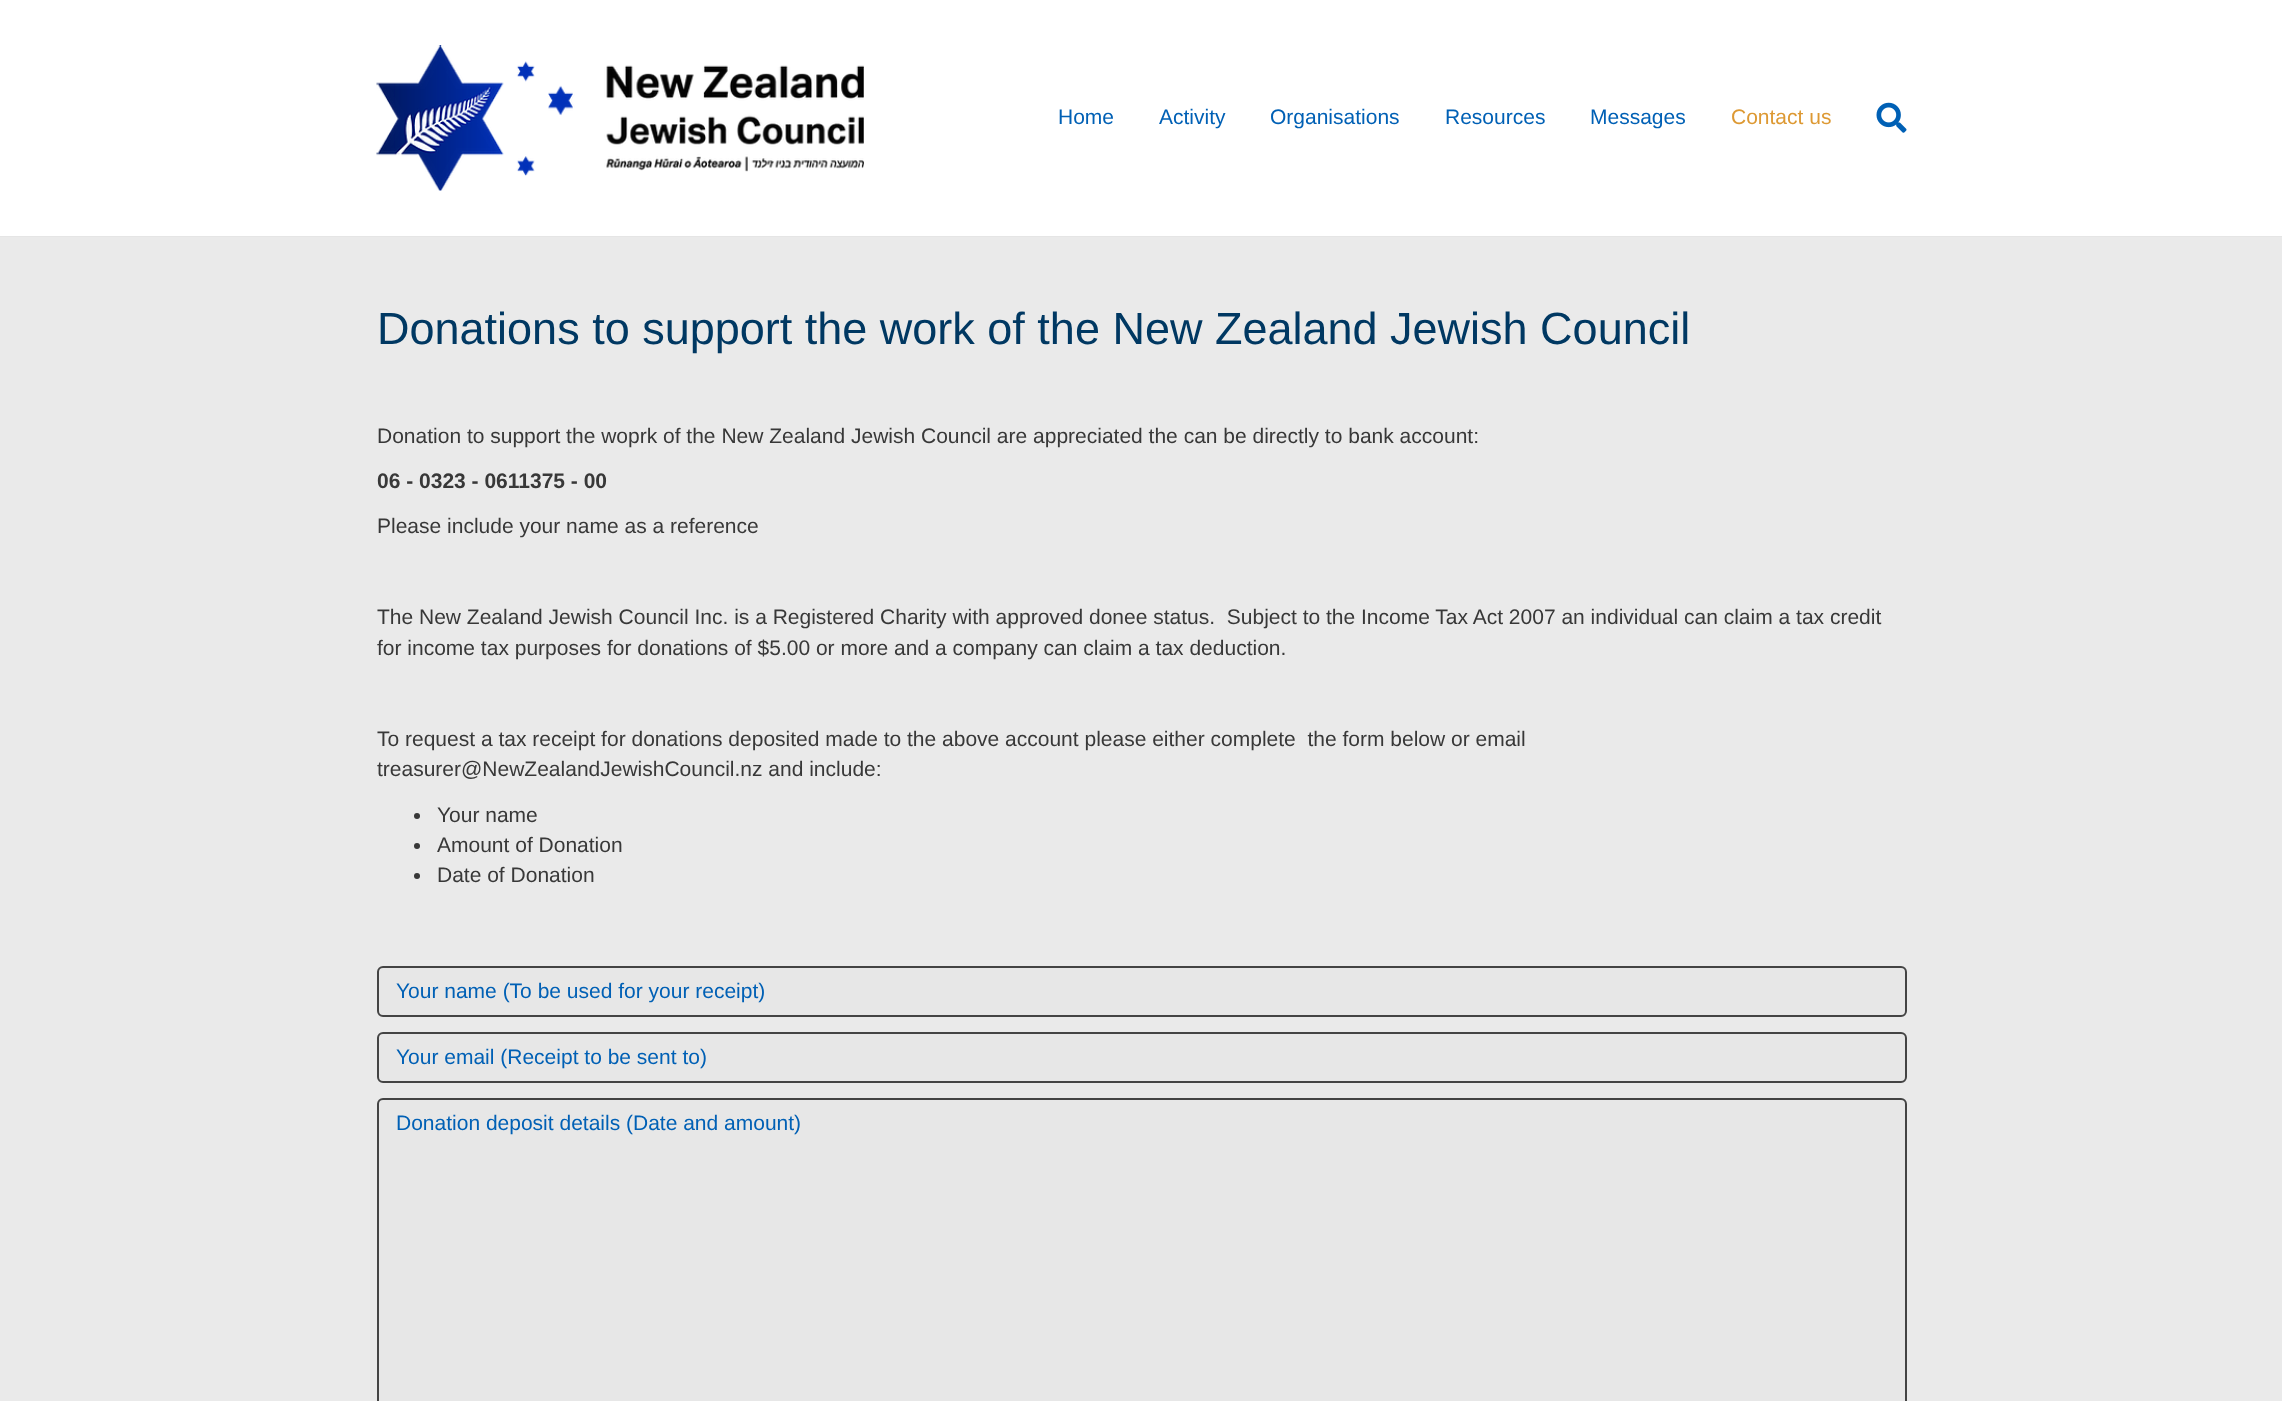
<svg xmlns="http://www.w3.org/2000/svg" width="2282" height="1401">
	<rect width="100%" height="100%" fill="#FFFFFF" />
	<rect x="0" y="236" width="2282" height="1" fill="#E5E5E5" />
	<image x="376" y="45" width="488" height="146" href="assets/img1.png" />
	<g font-family="Liberation Sans" font-size="21" fill="#0060B5">
		<text x="1058" y="124">Home</text>
		<text x="1159" y="124">Activity</text>
		<text x="1270" y="124">Organisations</text>
		<text x="1445" y="124">Resources</text>
		<text x="1590" y="124">Messages</text>
	</g>
	<text x="1731" y="124" font-family="Liberation Sans" font-size="21" fill="#DD9933">Contact us</text>
	<image x="1876" y="102" width="31" height="31" href="assets/img2.png" />
	<rect x="0" y="237" width="2282" height="1164" fill="#EAEAEA" />
	<text x="377" y="344" font-family="Liberation Sans" font-size="45" fill="#003862">Donations to support the work of the New Zealand Jewish Council</text>
	<text x="377" y="443" font-family="Liberation Sans" font-size="21" fill="#383838">Donation to support the woprk of the New Zealand Jewish Council are appreciated the can be directly to bank account:</text>
	<text x="377" y="488" font-family="Liberation Sans" font-size="21" font-weight="700" fill="#383838">06 - 0323 - 0611375 - 00</text>
	<g font-family="Liberation Sans" font-size="21" fill="#383838">
		<text x="377" y="533">Please include your name as a reference</text>
		<text x="377" y="624" xml:space="preserve">The New Zealand Jewish Council Inc. is a Registered Charity with approved donee status.  Subject to the Income Tax Act 2007 an individual can claim a tax credit</text>
		<text x="377" y="655">for income tax purposes for donations of $5.00 or more and a company can claim a tax deduction.</text>
		<text x="377" y="746" xml:space="preserve">To request a tax receipt for donations deposited made to the above account please either complete  the form below or email</text>
		<text x="377" y="776">treasurer@NewZealandJewishCouncil.nz and include:</text>
	</g>
	<circle cx="417" cy="816" r="3" fill="#383838" />
	<text x="437" y="822" font-family="Liberation Sans" font-size="21" fill="#383838">Your name</text>
	<circle cx="417" cy="846" r="3" fill="#383838" />
	<text x="437" y="852" font-family="Liberation Sans" font-size="21" fill="#383838">Amount of Donation</text>
	<circle cx="417" cy="876" r="3" fill="#383838" />
	<text x="437" y="882" font-family="Liberation Sans" font-size="21" fill="#383838">Date of Donation</text>
	<rect x="378" y="967" width="1528" height="49" rx="5" fill="#E7E7E7" stroke="#444444" stroke-width="2" />
	<text x="396" y="998" font-family="Liberation Sans" font-size="21" fill="#0060B5">Your name (To be used for your receipt)</text>
	<rect x="378" y="1033" width="1528" height="49" rx="5" fill="#E7E7E7" stroke="#444444" stroke-width="2" />
	<text x="396" y="1064" font-family="Liberation Sans" font-size="21" fill="#0060B5">Your email (Receipt to be sent to)</text>
	<rect x="378" y="1099" width="1528" height="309" rx="5" fill="#E7E7E7" stroke="#444444" stroke-width="2" />
	<text x="396" y="1130" font-family="Liberation Sans" font-size="21" fill="#0060B5">Donation deposit details (Date and amount)</text>
</svg>
